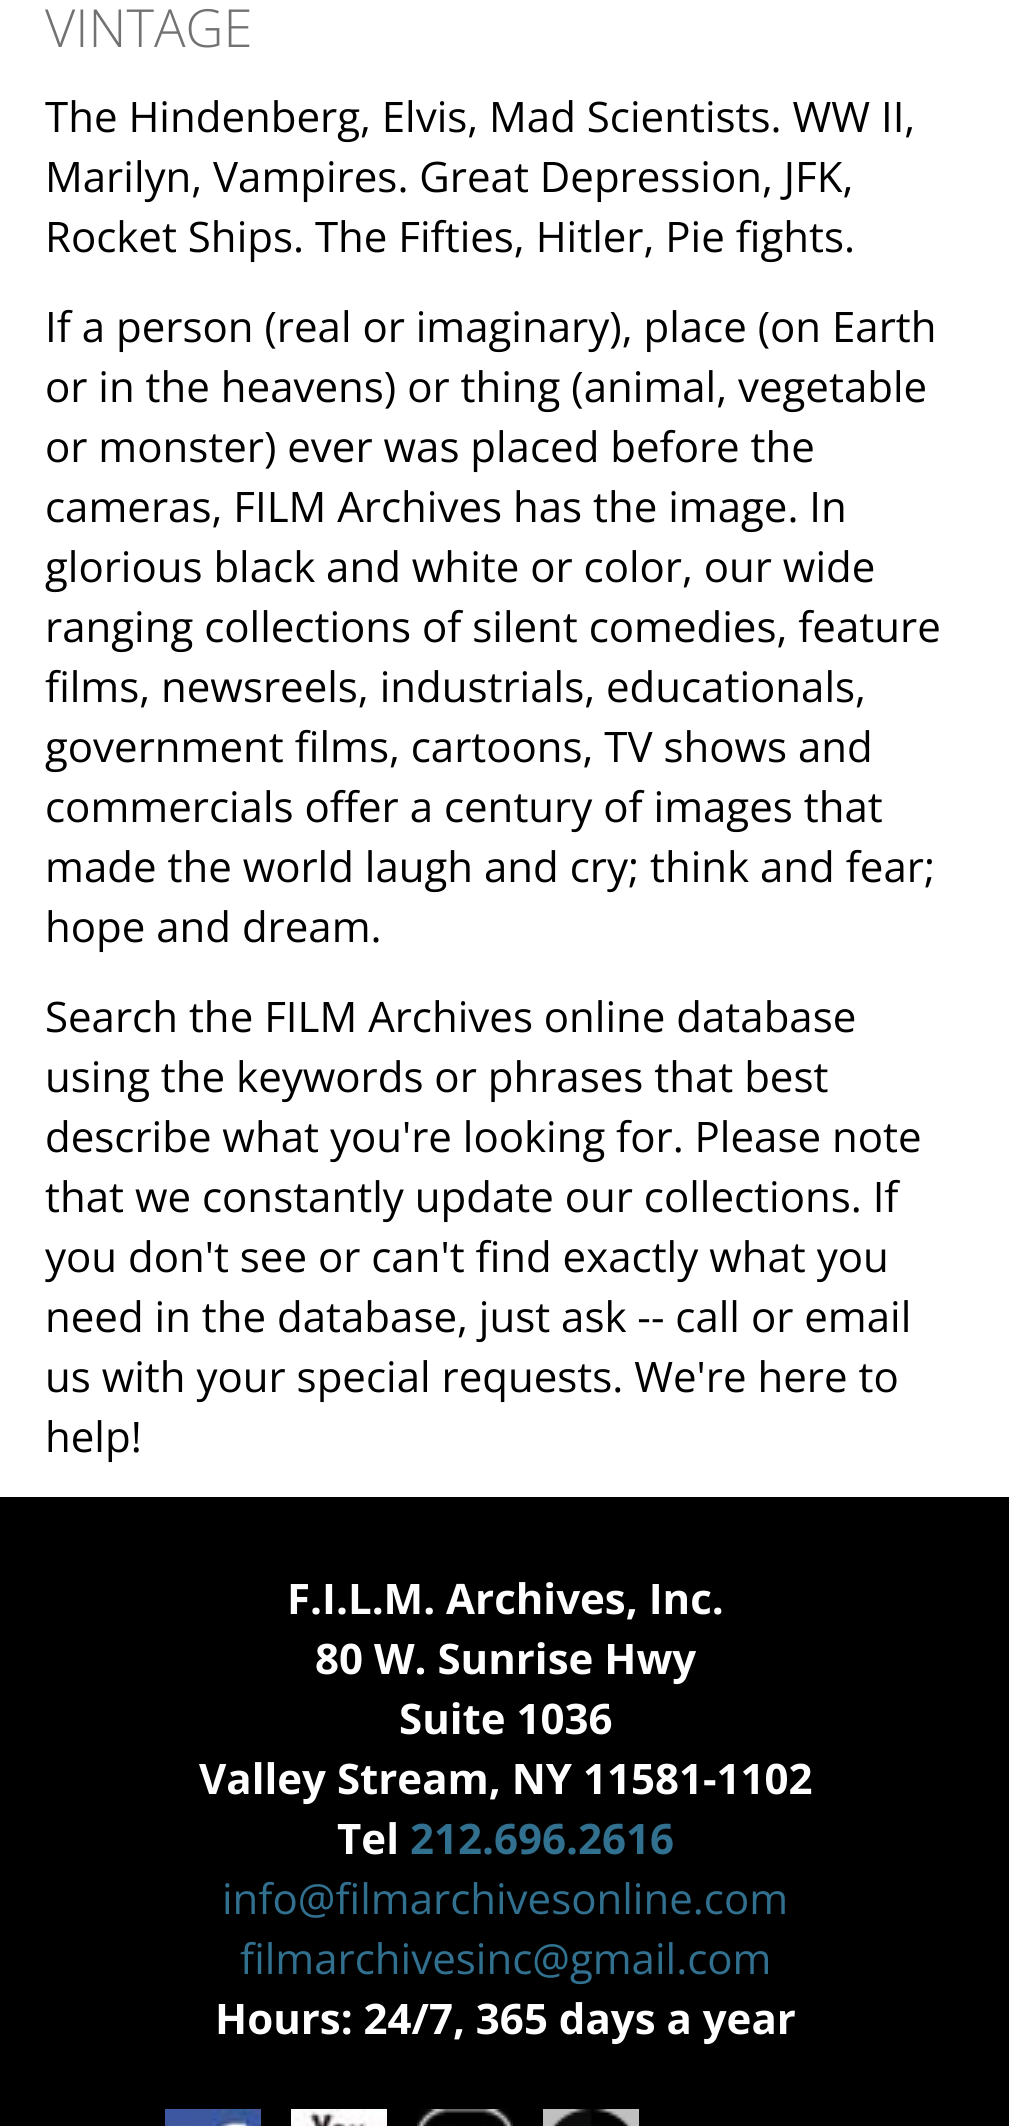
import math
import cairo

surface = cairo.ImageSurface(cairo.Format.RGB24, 1009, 2126)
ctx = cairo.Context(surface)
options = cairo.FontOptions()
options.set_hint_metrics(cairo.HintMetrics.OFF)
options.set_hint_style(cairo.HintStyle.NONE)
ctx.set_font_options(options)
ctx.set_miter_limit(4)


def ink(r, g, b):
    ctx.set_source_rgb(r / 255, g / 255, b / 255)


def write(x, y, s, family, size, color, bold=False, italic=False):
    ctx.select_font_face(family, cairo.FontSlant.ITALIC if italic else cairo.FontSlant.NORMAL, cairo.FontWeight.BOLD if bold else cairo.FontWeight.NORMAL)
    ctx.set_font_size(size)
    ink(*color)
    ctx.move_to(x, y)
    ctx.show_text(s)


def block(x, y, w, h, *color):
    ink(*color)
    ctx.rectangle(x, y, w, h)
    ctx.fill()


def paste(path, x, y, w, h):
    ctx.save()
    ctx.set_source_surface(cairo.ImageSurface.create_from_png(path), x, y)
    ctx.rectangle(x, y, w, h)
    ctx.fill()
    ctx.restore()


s1 = dict(family="Open Sans Light", size=52.5, color=(114, 114, 114))
s2 = dict(family="Open Sans", size=42, color=(0, 0, 0))
s3 = dict(family="Open Sans", size=42, color=(255, 255, 255), bold=True)
s4 = dict(family="Open Sans", size=42, color=(49, 112, 143), bold=True)
s5 = dict(family="Open Sans", size=42, color=(49, 112, 143))

ink(0, 0, 0)
ctx.paint()
block(0, 0, 1009, 1497, 255, 255, 255)
write(45, 47, "VINTAGE", **s1)
write(45, 132, "The Hindenberg, Elvis, Mad Scientists. WW II,", **s2)
write(45, 192, "Marilyn, Vampires. Great Depression, JFK,", **s2)
write(45, 252, "Rocket Ships. The Fifties, Hitler, Pie fights.", **s2)
write(45, 342, "If a person (real or imaginary), place (on Earth", **s2)
write(45, 402, "or in the heavens) or thing (animal, vegetable", **s2)
write(45, 462, "or monster) ever was placed before the", **s2)
write(45, 522, "cameras, FILM Archives has the image. In", **s2)
write(45, 582, "glorious black and white or color, our wide", **s2)
write(45, 642, "ranging collections of silent comedies, feature", **s2)
write(45, 702, "films, newsreels, industrials, educationals,", **s2)
write(45, 762, "government films, cartoons, TV shows and", **s2)
write(45, 822, "commercials offer a century of images that", **s2)
write(45, 882, "made the world laugh and cry; think and fear;", **s2)
write(45, 942, "hope and dream.", **s2)
write(45, 1032, "Search the FILM Archives online database", **s2)
write(45, 1092, "using the keywords or phrases that best", **s2)
write(45, 1152, "describe what you're looking for. Please note", **s2)
write(45, 1212, "that we constantly update our collections. If", **s2)
write(45, 1272, "you don't see or can't find exactly what you", **s2)
write(45, 1332, "need in the database, just ask -- call or email", **s2)
write(45, 1392, "us with your special requests. We're here to", **s2)
write(45, 1452, "help!", **s2)
write(287, 1614, "F.I.L.M. Archives, Inc.", **s3)
write(315, 1674, "80 W. Sunrise Hwy", **s3)
write(399, 1734, "Suite 1036", **s3)
write(199, 1794, "Valley Stream, NY 11581-1102", **s3)
write(337, 1854, "Tel", **s3)
write(410, 1854, "212.696.2616", **s4)
write(222, 1914, "info@filmarchivesonline.com", **s5)
write(240, 1974, "filmarchivesinc@gmail.com", **s5)
write(215, 2034, "Hours: 24/7, 365 days a year", **s3)
paste("pic1.png", 165, 2109, 96, 17)
paste("pic2.png", 291, 2109, 96, 17)
paste("pic3.png", 417, 2109, 96, 17)
paste("pic4.png", 543, 2109, 96, 17)
surface.write_to_png("screenshot.png")
